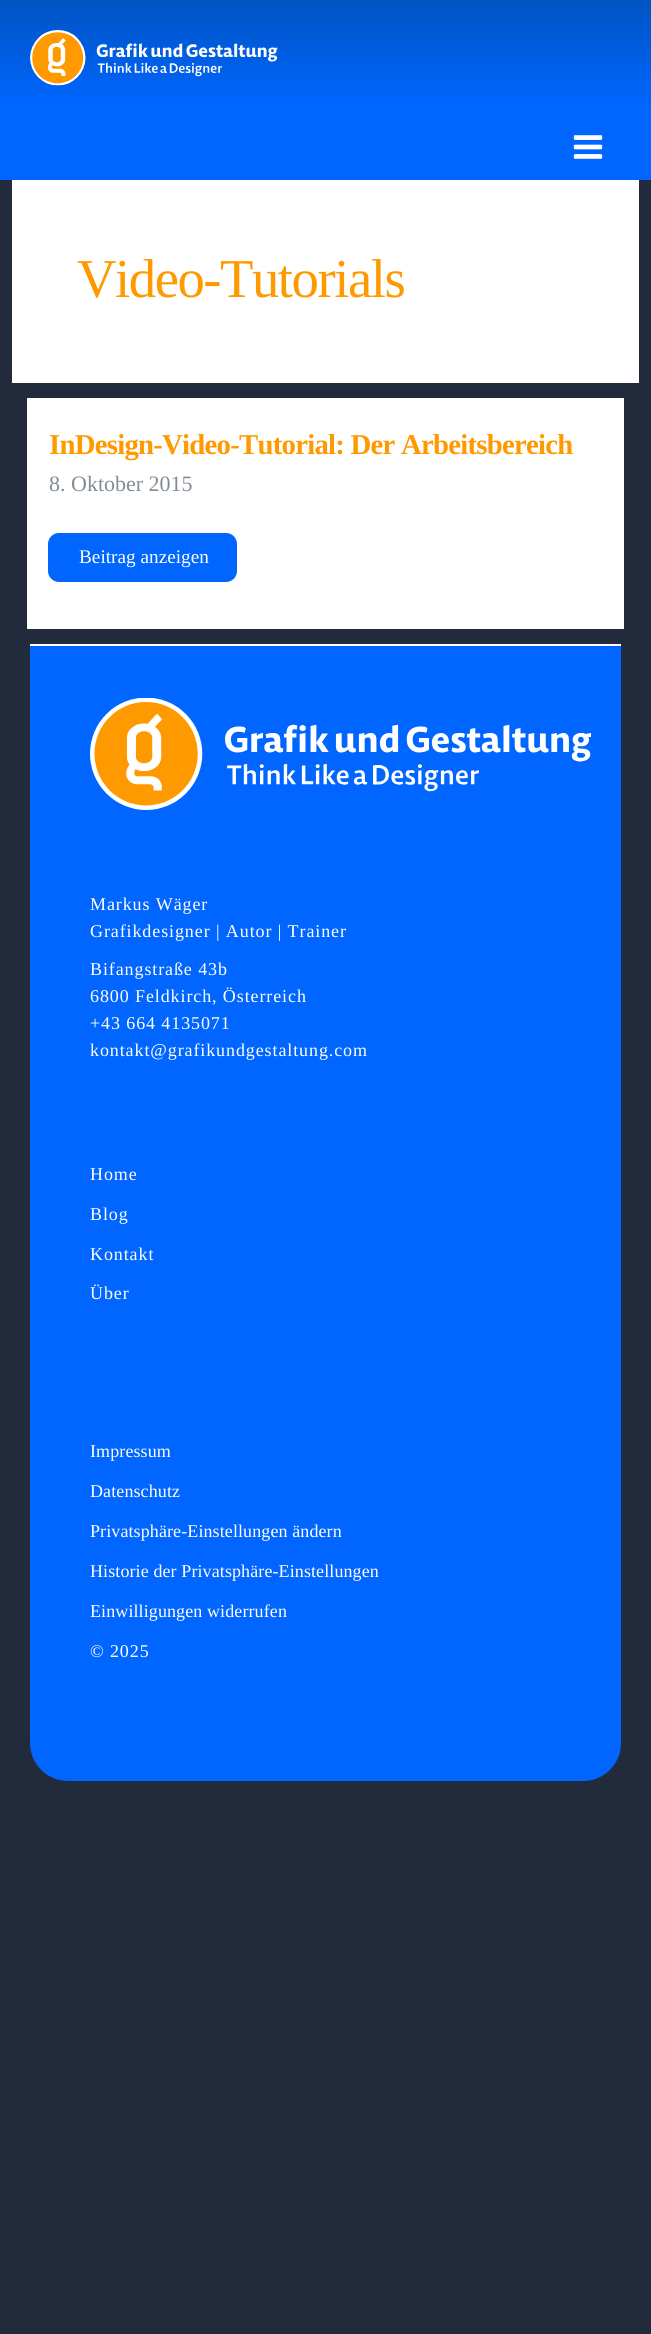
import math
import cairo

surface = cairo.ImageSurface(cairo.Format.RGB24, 651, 2334)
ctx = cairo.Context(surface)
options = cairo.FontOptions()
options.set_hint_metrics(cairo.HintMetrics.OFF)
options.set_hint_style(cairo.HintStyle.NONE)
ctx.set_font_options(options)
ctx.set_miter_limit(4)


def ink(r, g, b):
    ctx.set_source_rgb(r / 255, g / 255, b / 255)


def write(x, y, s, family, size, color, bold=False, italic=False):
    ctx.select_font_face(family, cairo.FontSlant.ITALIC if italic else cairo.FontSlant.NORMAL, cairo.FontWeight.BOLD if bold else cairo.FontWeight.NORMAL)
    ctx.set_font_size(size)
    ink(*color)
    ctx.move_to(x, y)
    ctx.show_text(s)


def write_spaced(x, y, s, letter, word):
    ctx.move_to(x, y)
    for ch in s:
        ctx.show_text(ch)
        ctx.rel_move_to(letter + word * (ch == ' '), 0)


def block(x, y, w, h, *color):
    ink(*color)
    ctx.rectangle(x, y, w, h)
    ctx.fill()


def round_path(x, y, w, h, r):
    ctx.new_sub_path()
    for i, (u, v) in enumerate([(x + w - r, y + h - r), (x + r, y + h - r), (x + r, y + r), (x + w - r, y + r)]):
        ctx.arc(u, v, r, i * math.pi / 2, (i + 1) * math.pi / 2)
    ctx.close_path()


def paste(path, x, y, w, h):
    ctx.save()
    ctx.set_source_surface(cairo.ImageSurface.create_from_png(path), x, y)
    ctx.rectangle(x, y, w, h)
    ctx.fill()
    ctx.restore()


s1 = dict(family="Liberation Serif", size=22, color=(132, 140, 152))
s2 = dict(family="Liberation Serif", size=19.25, color=(255, 255, 255))

ink(34, 43, 59)
ctx.paint()
gradient = cairo.LinearGradient(326, 107, 326, 0)
gradient.add_color_stop_rgba(0, 0, 0.4, 1, 1)
gradient.add_color_stop_rgba(1, 0, 0.329, 0.765, 1)
ctx.set_source(gradient)
ctx.rectangle(0, 0, 651, 107)
ctx.fill()
paste("pic1.png", 30, 30, 248, 56)
block(0, 107, 651, 73, 0, 102, 255)
paste("pic2.png", 573, 135, 30, 24)
block(12, 180, 627, 203, 255, 255, 255)
ctx.select_font_face("Liberation Serif")
ctx.set_font_size(54.75)
ink(255, 153, 0)
write_spaced(77, 297, "Video-Tutorials", -1.5, 0)
block(27, 398, 597, 231, 255, 255, 255)
ctx.select_font_face("Liberation Serif", cairo.FontSlant.NORMAL, cairo.FontWeight.BOLD)
ctx.set_font_size(28.75)
ink(255, 153, 0)
write_spaced(49, 454, "InDesign-Video-Tutorial: Der Arbeitsbereich", -0.75, 0)
write(49, 491, "8. Oktober 2015", **s1)
ink(0, 102, 255)
round_path(48, 533, 189, 49, 11)
ctx.fill()
write(79, 563, "Beitrag anzeigen", **s2)
ink(0, 102, 255)
ctx.new_path()
ctx.move_to(30, 645)
ctx.line_to(621, 645)
ctx.line_to(621, 1743)
ctx.curve_to(621, 1764, 604, 1781, 583, 1781)
ctx.line_to(68, 1781)
ctx.curve_to(47, 1781, 30, 1764, 30, 1743)
ctx.close_path()
ctx.fill()
block(30, 644, 591, 2, 255, 255, 255)
paste("pic3.png", 90, 698, 501, 112)
ctx.set_font_size(18)
write_spaced(90, 910, "Markus Wäger", 0.9, 0)
write_spaced(90, 937, "Grafikdesigner | Autor | Trainer", 0.9, 0)
write_spaced(90, 975, "Bifangstraße 43b", 0.9, 0)
write_spaced(90, 1002, "6800 Feldkirch, Österreich", 0.9, 0)
write_spaced(90, 1029, "+43 664 4135071", 0.9, 0)
write_spaced(90, 1056, "kontakt@grafikundgestaltung.com", 0.9, 0)
write_spaced(90, 1180, "Home", 0.9, 0)
write_spaced(90, 1220, "Blog", 0.9, 0)
write_spaced(90, 1260, "Kontakt", 0.9, 0)
write_spaced(90, 1299, "Über", 0.9, 0)
write_spaced(90, 1457, "Impressum", 0.1, 0)
write_spaced(90, 1497, "Datenschutz", 0.1, 0)
write_spaced(90, 1537, "Privatsphäre-Einstellungen ändern", 0.1, 0)
write_spaced(90, 1577, "Historie der Privatsphäre-Einstellungen", 0.1, 0)
write_spaced(90, 1617, "Einwilligungen widerrufen", 0.1, 0)
write_spaced(90, 1657, "© 2025", 0.9, 0)
surface.write_to_png("screenshot.png")
